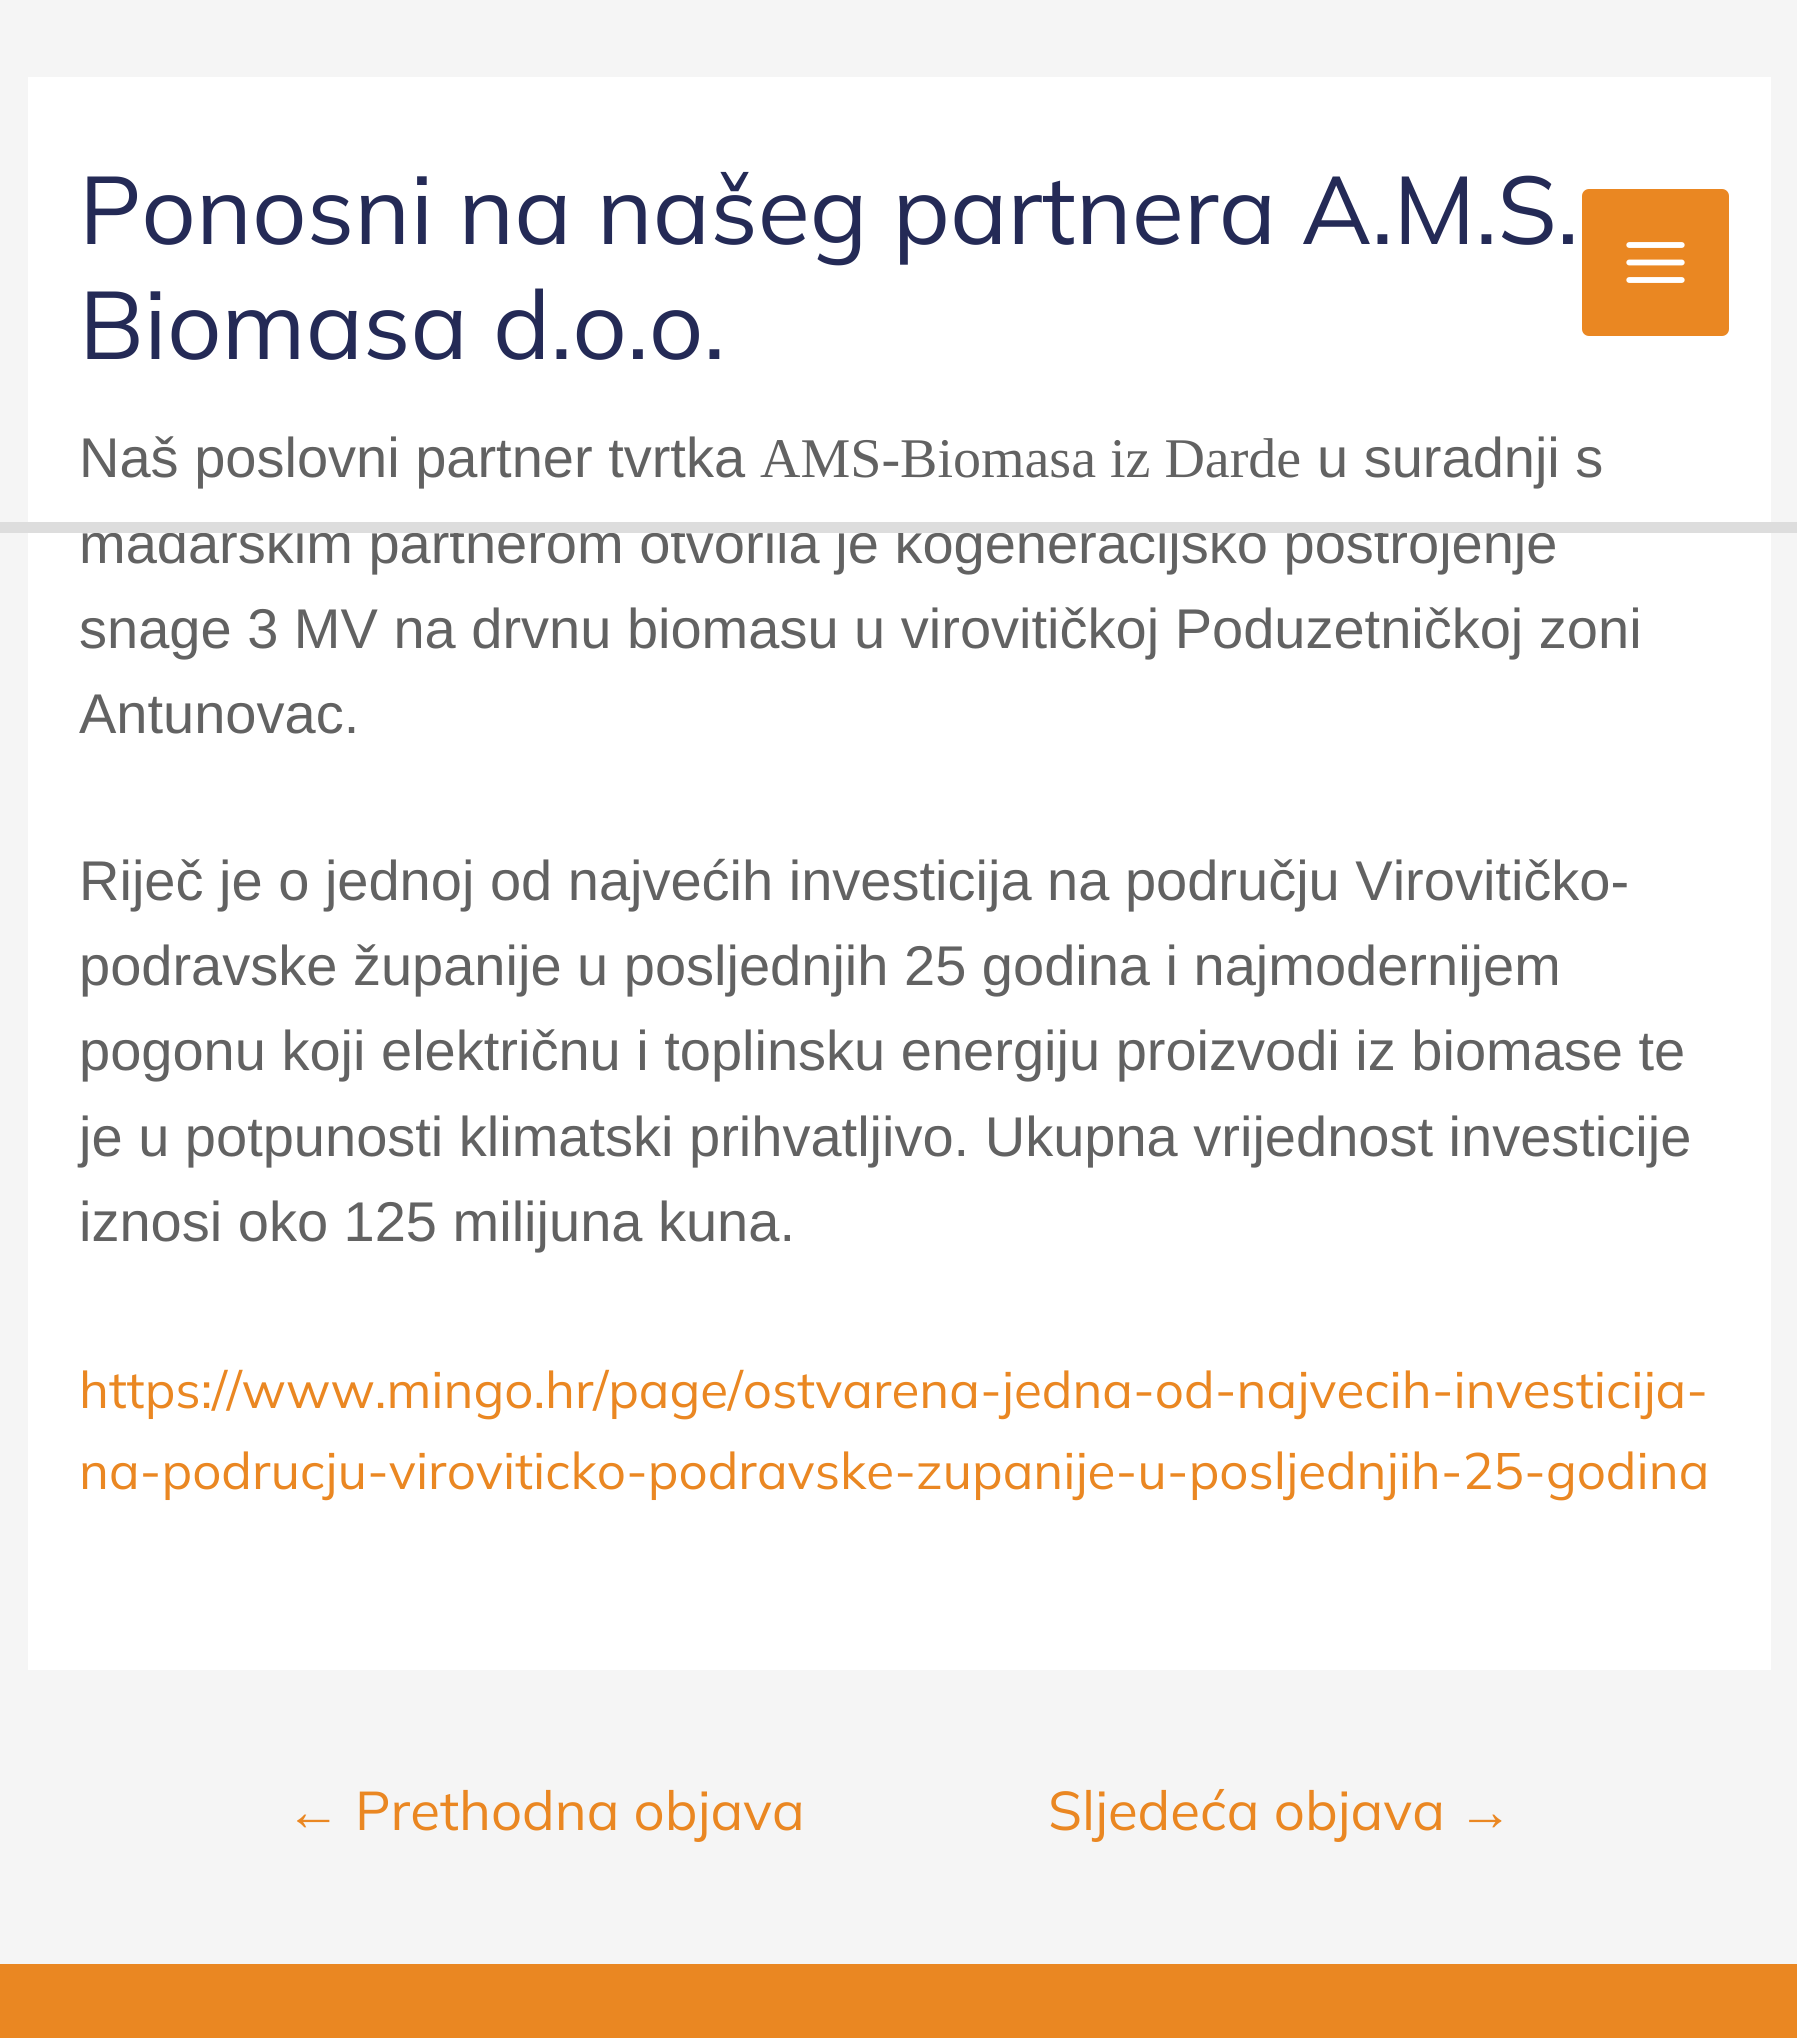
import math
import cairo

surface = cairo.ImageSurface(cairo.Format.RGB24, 1797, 2038)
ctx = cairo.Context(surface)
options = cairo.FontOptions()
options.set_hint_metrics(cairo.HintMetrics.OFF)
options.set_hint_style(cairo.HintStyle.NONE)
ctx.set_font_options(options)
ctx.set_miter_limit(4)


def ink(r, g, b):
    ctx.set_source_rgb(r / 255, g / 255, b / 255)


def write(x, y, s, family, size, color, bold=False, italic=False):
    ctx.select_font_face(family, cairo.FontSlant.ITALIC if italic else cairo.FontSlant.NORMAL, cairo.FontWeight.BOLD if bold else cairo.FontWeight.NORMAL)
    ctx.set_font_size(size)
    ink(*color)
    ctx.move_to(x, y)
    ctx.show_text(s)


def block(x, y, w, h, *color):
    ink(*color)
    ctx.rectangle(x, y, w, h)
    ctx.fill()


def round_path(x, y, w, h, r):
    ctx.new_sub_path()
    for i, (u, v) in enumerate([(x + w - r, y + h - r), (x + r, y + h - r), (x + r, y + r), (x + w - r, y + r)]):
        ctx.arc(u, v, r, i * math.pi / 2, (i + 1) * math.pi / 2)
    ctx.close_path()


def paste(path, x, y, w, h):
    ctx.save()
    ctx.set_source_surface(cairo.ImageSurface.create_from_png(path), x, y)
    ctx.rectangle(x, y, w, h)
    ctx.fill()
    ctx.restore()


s1 = dict(family="Mulish ExtraLight", size=95.75, color=(36, 42, 86))
s2 = dict(family="Liberation Sans", size=56, color=(98, 98, 98))
s3 = dict(family="Liberation Serif", size=56, color=(98, 98, 98))
s4 = dict(family="Mulish ExtraLight", size=51.1, color=(234, 135, 34))
s5 = dict(family="Liberation Sans", size=54.5, color=(234, 135, 34))
s6 = dict(family="Mulish ExtraLight", size=54.5, color=(234, 135, 34))

ink(245, 245, 245)
ctx.paint()
block(28, 77, 1743, 1593, 255, 255, 255)
write(79, 244, "Ponosni na našeg partnera A.M.S.", **s1)
write(79, 359, "Biomasa d.o.o.", **s1)
write(79, 477, "Naš poslovni partner tvrtka", **s2)
write(760, 477, "AMS-Biomasa iz Darde", **s3)
write(1317, 477, "u suradnji s", **s2)
write(79, 563, "mađarskim partnerom otvorila je kogeneracijsko postrojenje", **s2)
write(79, 648, "snage 3 MV na drvnu biomasu u virovitičkoj Poduzetničkoj zoni", **s2)
write(79, 733, "Antunovac.", **s2)
write(79, 900, "Riječ je o jednoj od najvećih investicija na području Virovitičko-", **s2)
write(79, 985, "podravske županije u posljednjih 25 godina i najmodernijem", **s2)
write(79, 1070, "pogonu koji električnu i toplinsku energiju proizvodi iz biomase te", **s2)
write(79, 1156, "je u potpunosti klimatski prihvatljivo. Ukupna vrijednost investicije", **s2)
write(79, 1241, "iznosi oko 125 milijuna kuna.", **s2)
write(79, 1408, "https://www.mingo.hr/page/ostvarena-jedna-od-najvecih-investicija-", **s4)
write(79, 1489, "na-podrucju-viroviticko-podravske-zupanije-u-posljednjih-25-godina", **s4)
write(286, 1830, "←", **s5)
write(355, 1830, "Prethodna objava", **s6)
write(1048, 1830, "Sljedeća objava", **s6)
write(1458, 1830, "→", **s5)
block(0, 522, 1797, 11, 221, 221, 221)
ink(234, 135, 34)
round_path(1582, 189, 147, 147, 7)
ctx.fill()
paste("pic1.png", 1626, 242, 59, 41)
block(0, 1964, 1797, 74, 234, 135, 34)
surface.write_to_png("screenshot.png")
